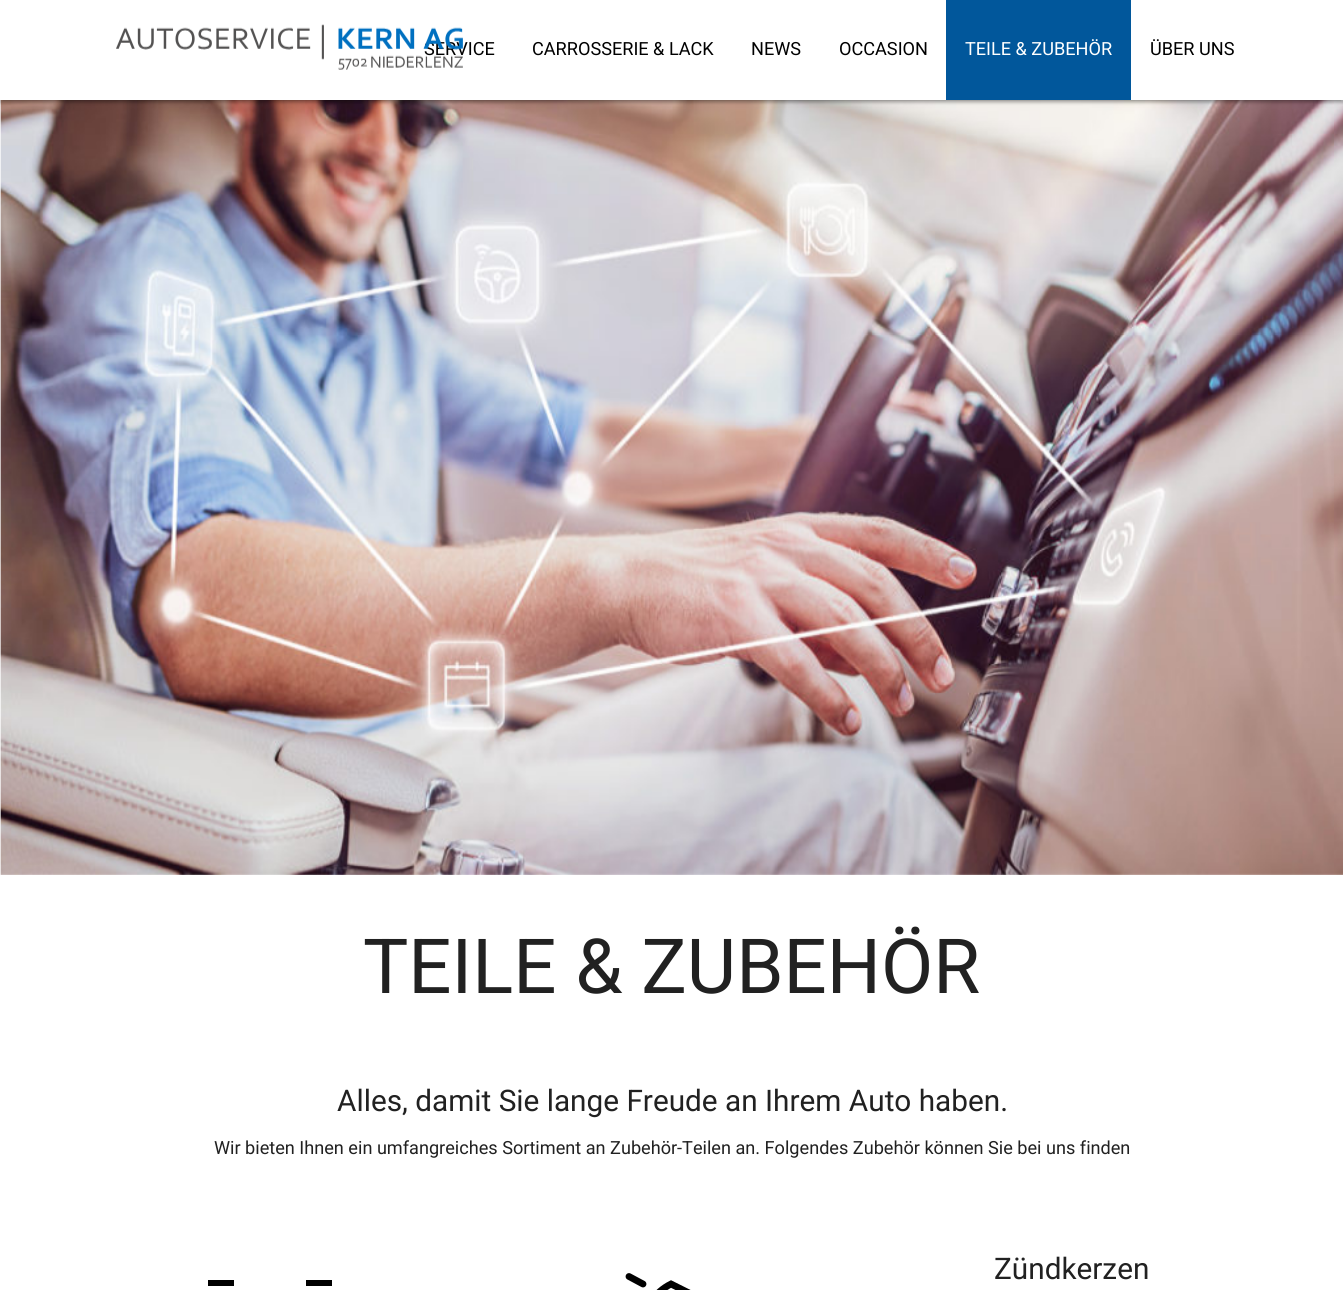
import math
import cairo

surface = cairo.ImageSurface(cairo.Format.RGB24, 1343, 1290)
ctx = cairo.Context(surface)
options = cairo.FontOptions()
options.set_hint_metrics(cairo.HintMetrics.OFF)
options.set_hint_style(cairo.HintStyle.NONE)
ctx.set_font_options(options)
ctx.set_miter_limit(4)


def ink(r, g, b):
    ctx.set_source_rgb(r / 255, g / 255, b / 255)


def write(x, y, s, family, size, color, bold=False, italic=False):
    ctx.select_font_face(family, cairo.FontSlant.ITALIC if italic else cairo.FontSlant.NORMAL, cairo.FontWeight.BOLD if bold else cairo.FontWeight.NORMAL)
    ctx.set_font_size(size)
    ink(*color)
    ctx.move_to(x, y)
    ctx.show_text(s)


def block(x, y, w, h, *color):
    ink(*color)
    ctx.rectangle(x, y, w, h)
    ctx.fill()


def round_path(x, y, w, h, r):
    ctx.new_sub_path()
    for i, (u, v) in enumerate([(x + w - r, y + h - r), (x + r, y + h - r), (x + r, y + r), (x + w - r, y + r)]):
        ctx.arc(u, v, r, i * math.pi / 2, (i + 1) * math.pi / 2)
    ctx.close_path()


def blur_box(x, y, w, h, r, blur, alpha):
    ctx.push_group_with_content(cairo.Content.ALPHA)
    ctx.set_operator(cairo.Operator.SOURCE)
    for i in range(15, -16, -2):
        e = blur * i / 6
        if min(w, h) + 2 * e > 0:
            ctx.set_source_rgba(0, 0, 0, alpha * math.erfc((i - 1) / 8.5) / 2)
            round_path(x - e, y - e, w + 2 * e, h + 2 * e, max(0, min(r + e + blur * .6, min(w, h) / 2 + e)))
            ctx.fill()
    ctx.mask(ctx.pop_group())


def paste(path, x, y, w, h):
    ctx.save()
    ctx.set_source_surface(cairo.ImageSurface.create_from_png(path), x, y)
    ctx.rectangle(x, y, w, h)
    ctx.fill()
    ctx.restore()


s1 = dict(family="Roboto", size=18.12, color=(0, 0, 0))
s2 = dict(family="Roboto", size=18.12, color=(255, 255, 255))
s3 = dict(family="Roboto", size=76, color=(33, 33, 33))
s4 = dict(family="Roboto", size=29.75, color=(33, 33, 33))
s5 = dict(family="Roboto", size=18.12, color=(33, 33, 33))

ink(255, 255, 255)
ctx.paint()
paste("pic2.png", 0, 100, 1343, 775)
ink(0, 0, 0)
blur_box(0, 1, 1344, 100, 0, 3, 0.2)
blur_box(3, 6, 1338, 95, 0, 0.5, 0.12)
blur_box(0, 3, 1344, 100, 0, 1, 0.14)
block(0, 0, 1343, 100, 255, 255, 255)
write(424, 55, "SERVICE", **s1)
paste("pic1.png", 116, 24, 347, 46)
write(532, 55, "CARROSSERIE & LACK", **s1)
write(751, 55, "NEWS", **s1)
write(839, 55, "OCCASION", **s1)
block(946, 0, 185, 100, 1, 87, 155)
write(965, 55, "TEILE & ZUBEHÖR", **s2)
write(1150, 55, "ÜBER UNS", **s1)
write(363, 993, "TEILE & ZUBEHÖR", **s3)
write(337, 1111, "Alles, damit Sie lange Freude an Ihrem Auto haben.", **s4)
write(214, 1154, "Wir bieten Ihnen ein umfangreiches Sortiment an Zubehör-Teilen an. Folgendes Zubehör können Sie bei uns finden", **s5)
block(208, 1280, 26, 6, 0, 0, 0)
block(306, 1280, 26, 6, 0, 0, 0)
ctx.new_path()
ctx.move_to(629, 1276.5)
ctx.line_to(643, 1284)
ctx.set_line_width(6.8)
ctx.set_line_cap(cairo.LineCap.ROUND)
ctx.stroke()
ctx.new_path()
ctx.move_to(671, 1284)
ctx.line_to(704, 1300.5)
ctx.line_to(704, 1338)
ctx.line_to(671, 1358)
ctx.curve_to(638.5, 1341, 637.5, 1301, 671, 1284)
ctx.close_path()
ctx.set_line_cap(cairo.LineCap.BUTT)
ctx.stroke()
write(994, 1279, "Zündkerzen", **s4)
surface.write_to_png("screenshot.png")
